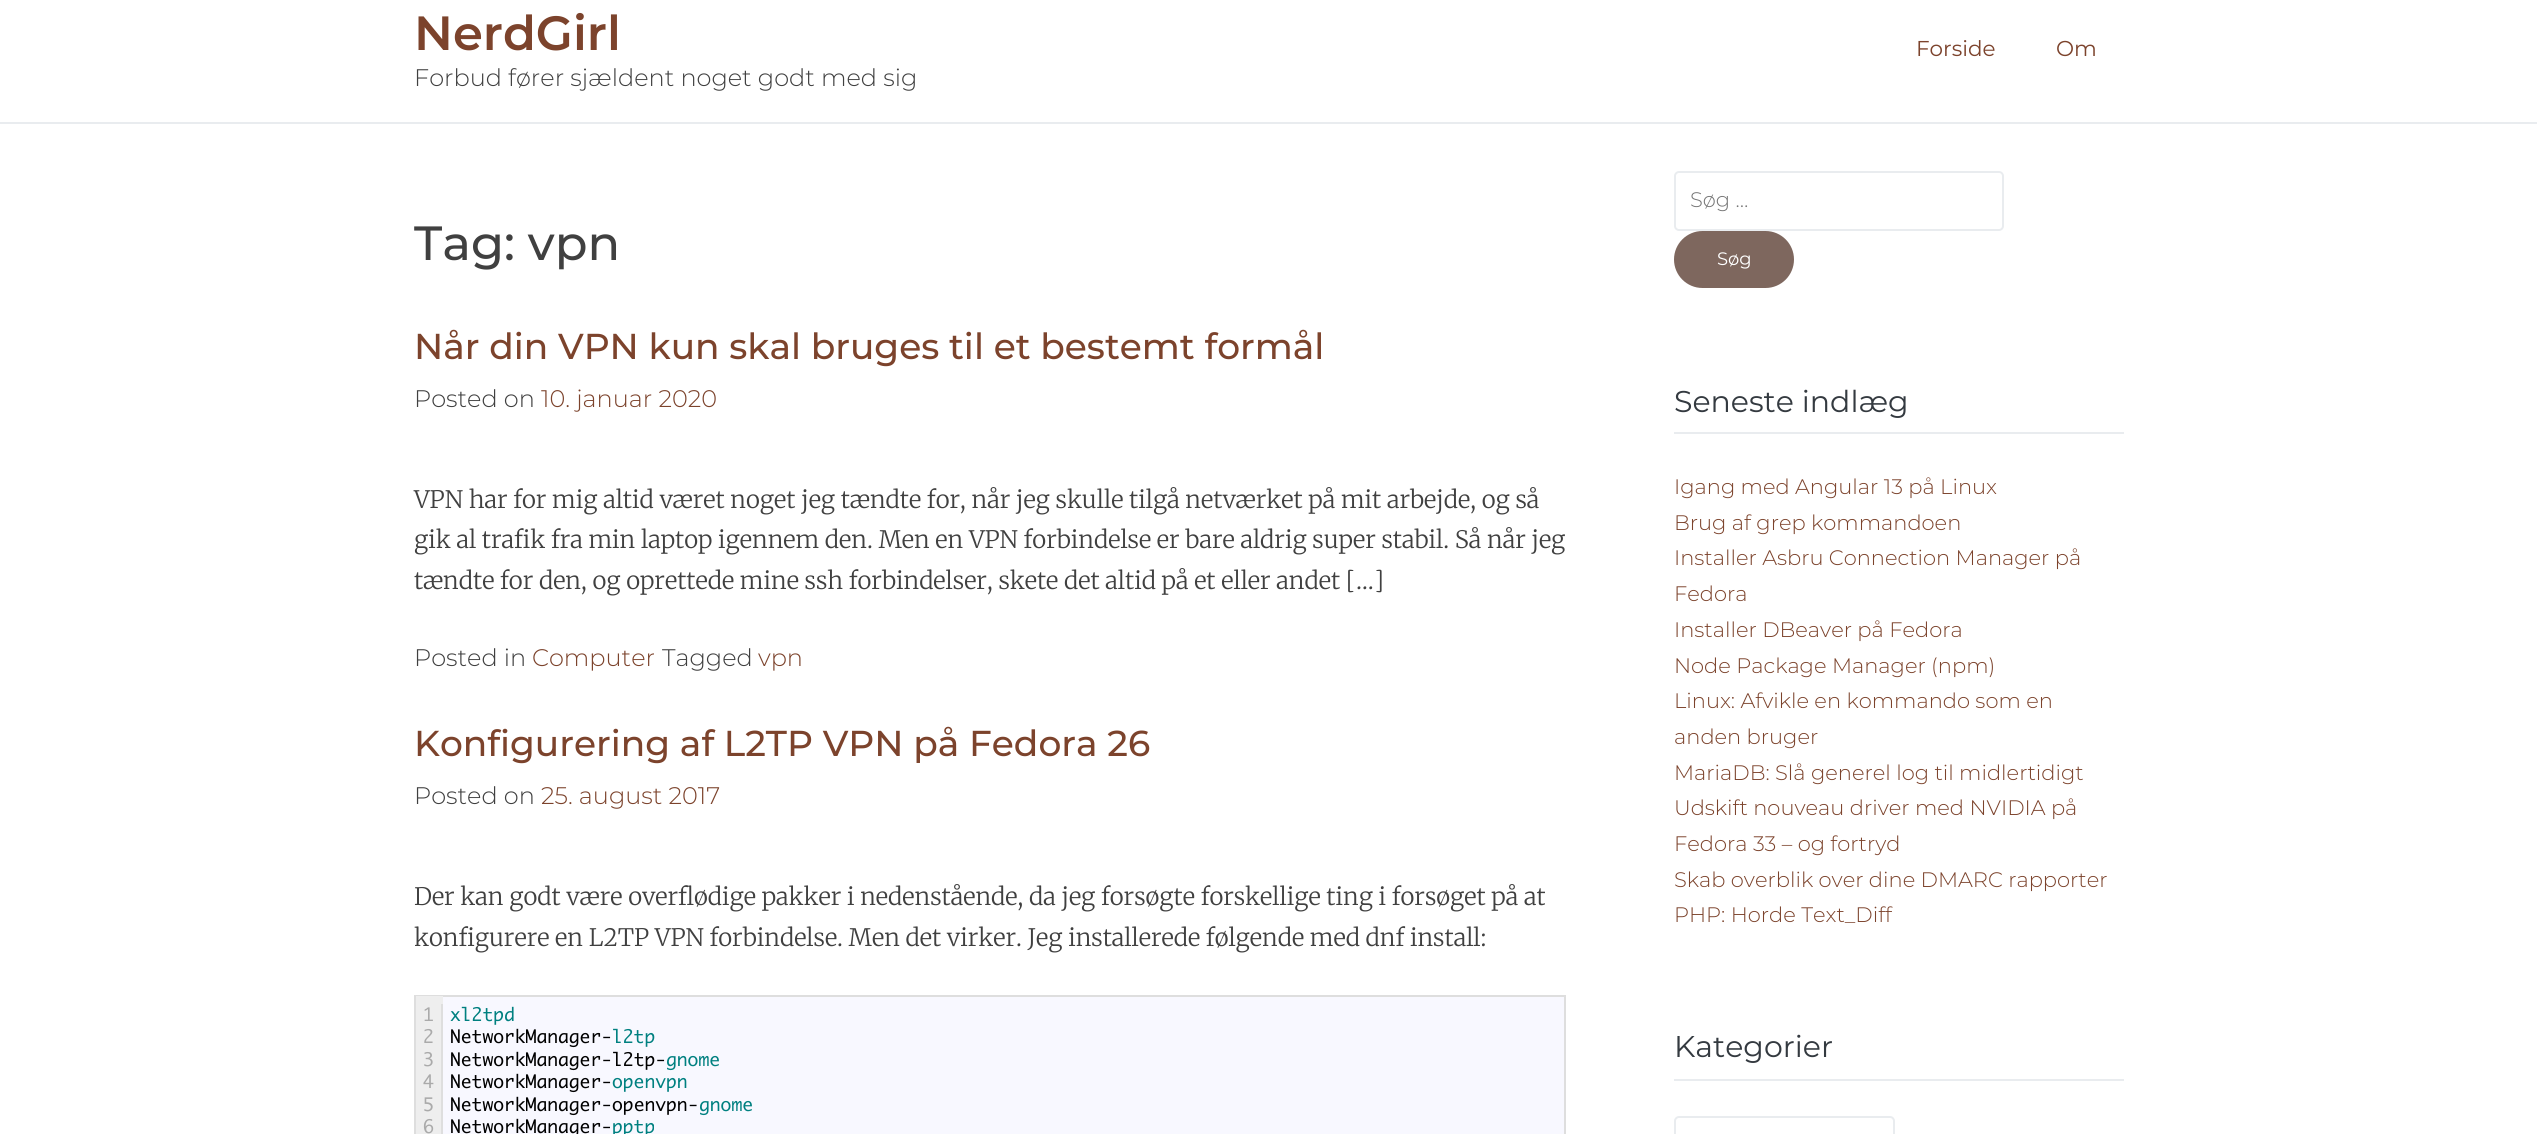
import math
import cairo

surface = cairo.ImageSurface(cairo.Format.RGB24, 2537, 1134)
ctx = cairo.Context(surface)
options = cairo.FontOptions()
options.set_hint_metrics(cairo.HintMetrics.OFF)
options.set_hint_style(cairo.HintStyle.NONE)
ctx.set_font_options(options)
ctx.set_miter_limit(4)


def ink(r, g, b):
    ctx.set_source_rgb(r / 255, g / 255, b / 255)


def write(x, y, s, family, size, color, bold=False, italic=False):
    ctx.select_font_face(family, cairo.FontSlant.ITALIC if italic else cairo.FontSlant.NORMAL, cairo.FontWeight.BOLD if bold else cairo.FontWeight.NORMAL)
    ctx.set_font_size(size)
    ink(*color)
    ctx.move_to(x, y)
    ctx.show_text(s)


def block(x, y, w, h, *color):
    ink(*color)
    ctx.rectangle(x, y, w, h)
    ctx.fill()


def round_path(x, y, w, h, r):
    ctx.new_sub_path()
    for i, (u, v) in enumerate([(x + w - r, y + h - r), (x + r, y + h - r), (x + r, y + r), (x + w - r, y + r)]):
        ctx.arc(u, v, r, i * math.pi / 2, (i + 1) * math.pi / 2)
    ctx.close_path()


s1 = dict(family="Montserrat SemiBold", size=48, color=(124, 67, 44))
s2 = dict(family="Montserrat Light", size=24, color=(64, 64, 64))
s3 = dict(family="Montserrat", size=21.5, color=(124, 67, 44))
s4 = dict(family="Montserrat Medium", size=48, color=(64, 64, 64))
s5 = dict(family="Montserrat Medium", size=36, color=(124, 67, 44))
s6 = dict(family="Montserrat Light", size=24, color=(124, 67, 44))
s7 = dict(family="Merriweather Light", size=24, color=(64, 64, 64))
s8 = dict(family="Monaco", size=18, color=(170, 170, 170))
s9 = dict(family="Monaco", size=18, color=(0, 128, 128))
s10 = dict(family="Monaco", size=18, color=(0, 0, 0))
s11 = dict(family="Montserrat Light", size=21, color=(117, 117, 117))
s12 = dict(family="Montserrat", size=18, color=(255, 255, 255))
s13 = dict(family="Montserrat", size=30, color=(52, 58, 64))
s14 = dict(family="Montserrat Light", size=21, color=(124, 67, 44))

ink(255, 255, 255)
ctx.paint()
block(0, 122, 2537, 2, 233, 236, 239)
write(414, 50, "NerdGirl", **s1)
write(414, 86, "Forbud fører sjældent noget godt med sig", **s2)
write(1916, 56, "Forside", **s3)
write(2056, 56, "Om", **s3)
write(414, 260, "Tag: vpn", **s4)
write(414, 359, "Når din VPN kun skal bruges til et bestemt formål", **s5)
write(414, 407, "Posted on", **s2)
write(541, 407, "10. januar 2020", **s6)
write(414, 508, "VPN har for mig altid været noget jeg tændte for, når jeg skulle tilgå netværket på mit arbejde, og så", **s7)
write(414, 548, "gik al trafik fra min laptop igennem den. Men en VPN forbindelse er bare aldrig super stabil. Så når jeg", **s7)
write(414, 589, "tændte for den, og oprettede mine ssh forbindelser, skete det altid på et eller andet […]", **s7)
write(414, 666, "Posted in", **s2)
write(532, 666, "Computer", **s6)
write(662, 666, "Tagged", **s2)
write(758, 666, "vpn", **s6)
write(414, 756, "Konfigurering af L2TP VPN på Fedora 26", **s5)
write(414, 804, "Posted on", **s2)
write(541, 804, "25. august 2017", **s6)
write(414, 905, "Der kan godt være overflødige pakker i nedenstående, da jeg forsøgte forskellige ting i forsøget på at", **s7)
write(414, 946, "konfigurere en L2TP VPN forbindelse. Men det virker. Jeg installerede følgende med dnf install:", **s7)
block(443, 997, 1121, 137, 248, 248, 255)
ctx.rectangle(415, 996, 1150, 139)
ink(222, 222, 222)
ctx.stroke()
block(416, 996, 27, 138, 238, 238, 238)
block(441, 1004, 2, 130, 222, 222, 222)
write(423, 1021, "1", **s8)
write(423, 1043, "2", **s8)
write(423, 1066, "3", **s8)
write(423, 1088, "4", **s8)
write(423, 1111, "5", **s8)
write(423, 1133, "6", **s8)
write(450, 1021, "xl2tpd", **s9)
write(450, 1043, "NetworkManager-", **s10)
write(612, 1043, "l2tp", **s9)
write(450, 1066, "NetworkManager-l2tp-", **s10)
write(666, 1066, "gnome", **s9)
write(450, 1088, "NetworkManager-", **s10)
write(612, 1088, "openvpn", **s9)
write(450, 1111, "NetworkManager-openvpn-", **s10)
write(699, 1111, "gnome", **s9)
write(450, 1133, "NetworkManager-", **s10)
write(612, 1133, "pptp", **s9)
round_path(1675, 172, 328, 58, 4)
ink(233, 236, 239)
ctx.stroke()
write(1690, 207, "Søg …", **s11)
ink(126, 103, 94)
round_path(1674, 231, 120, 57, 28.5)
ctx.fill()
write(1717, 265, "Søg", **s12)
block(1674, 432, 450, 2, 233, 236, 239)
write(1674, 412, "Seneste indlæg", **s13)
write(1674, 494, "Igang med Angular 13 på Linux", **s14)
write(1674, 530, "Brug af grep kommandoen", **s14)
write(1674, 565, "Installer Asbru Connection Manager på", **s14)
write(1674, 601, "Fedora", **s14)
write(1674, 637, "Installer DBeaver på Fedora", **s14)
write(1674, 673, "Node Package Manager (npm)", **s14)
write(1674, 708, "Linux: Afvikle en kommando som en", **s14)
write(1674, 744, "anden bruger", **s14)
write(1674, 780, "MariaDB: Slå generel log til midlertidigt", **s14)
write(1674, 815, "Udskift nouveau driver med NVIDIA på", **s14)
write(1674, 851, "Fedora 33 – og fortryd", **s14)
write(1674, 887, "Skab overblik over dine DMARC rapporter", **s14)
write(1674, 922, "PHP: Horde Text_Diff", **s14)
block(1674, 1079, 450, 2, 233, 236, 239)
write(1674, 1057, "Kategorier", **s13)
round_path(1675, 1117, 219, 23, 4)
ink(233, 236, 239)
ctx.stroke()
surface.write_to_png("screenshot.png")
